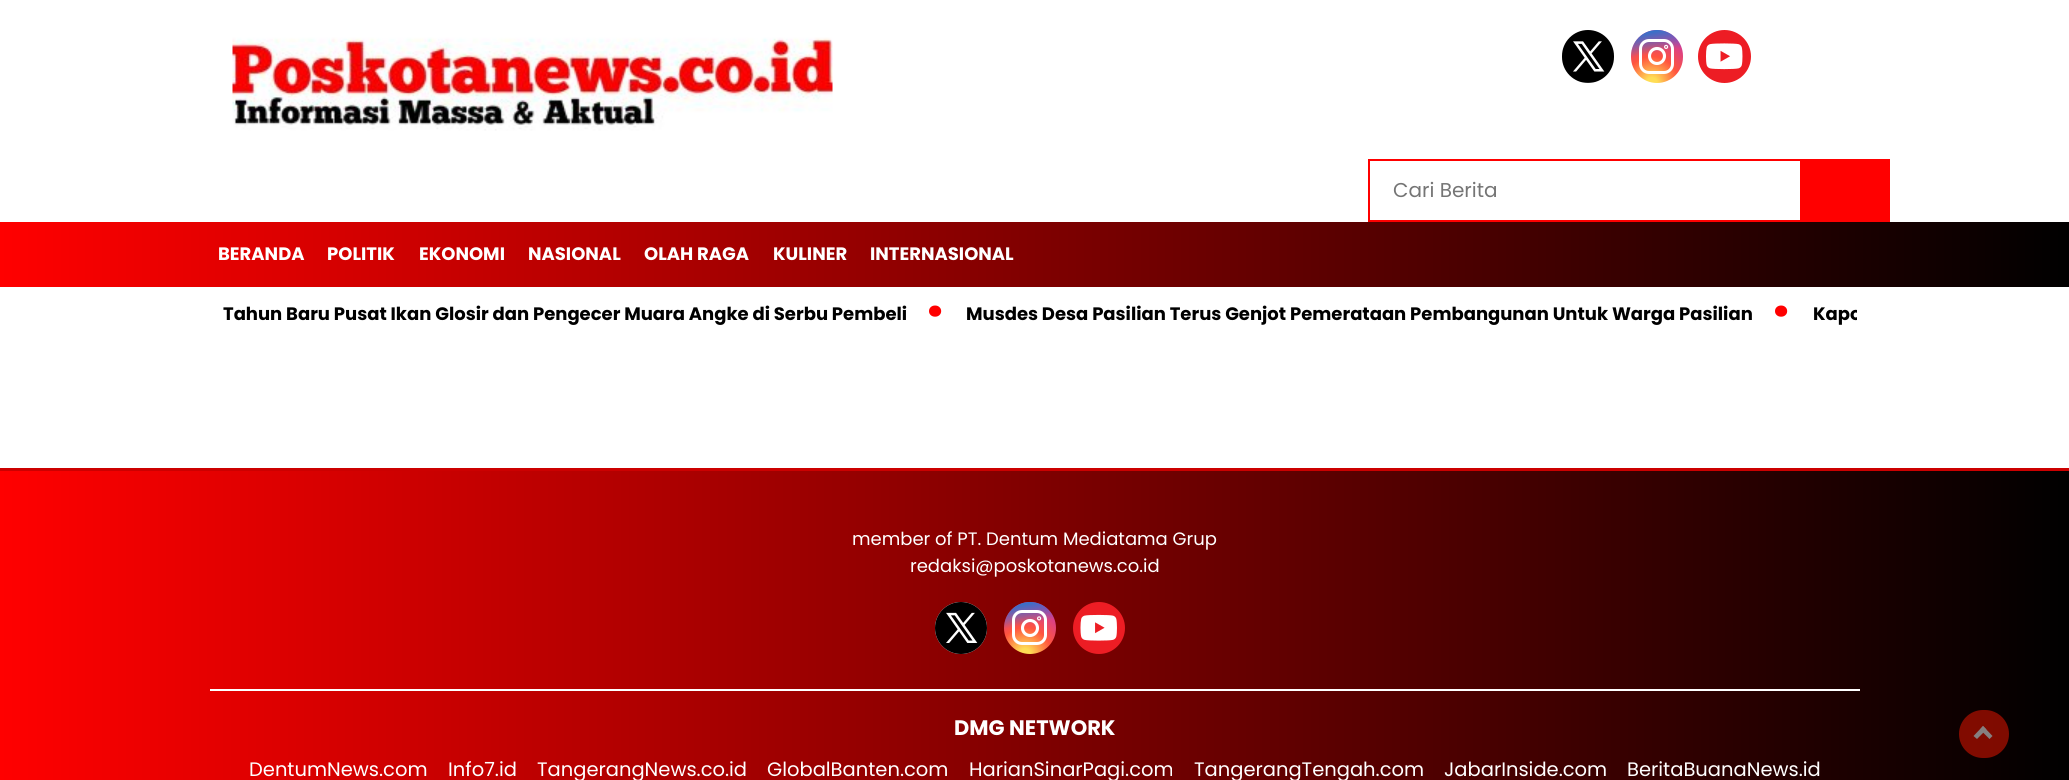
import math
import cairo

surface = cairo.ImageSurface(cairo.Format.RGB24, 2069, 780)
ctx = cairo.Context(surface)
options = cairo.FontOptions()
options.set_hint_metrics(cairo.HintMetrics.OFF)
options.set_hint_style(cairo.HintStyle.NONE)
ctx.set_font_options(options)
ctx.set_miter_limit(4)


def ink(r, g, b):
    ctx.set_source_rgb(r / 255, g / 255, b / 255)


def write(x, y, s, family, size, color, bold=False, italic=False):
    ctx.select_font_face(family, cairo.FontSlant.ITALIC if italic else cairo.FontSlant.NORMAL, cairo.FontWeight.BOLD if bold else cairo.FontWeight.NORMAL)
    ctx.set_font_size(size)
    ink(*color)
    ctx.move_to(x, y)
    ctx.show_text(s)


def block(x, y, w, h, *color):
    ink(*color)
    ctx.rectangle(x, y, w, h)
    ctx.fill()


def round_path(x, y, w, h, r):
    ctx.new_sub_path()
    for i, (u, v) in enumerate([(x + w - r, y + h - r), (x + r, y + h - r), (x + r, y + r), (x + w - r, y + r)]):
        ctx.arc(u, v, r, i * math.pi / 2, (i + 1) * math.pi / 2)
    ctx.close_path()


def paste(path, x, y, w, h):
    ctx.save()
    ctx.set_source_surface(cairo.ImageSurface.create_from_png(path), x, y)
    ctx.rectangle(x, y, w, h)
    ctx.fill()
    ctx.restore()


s1 = dict(family="Poppins", size=20, color=(117, 117, 117))
s2 = dict(family="Poppins", size=18, color=(255, 255, 255), bold=True)
s3 = dict(family="Poppins", size=18, color=(0, 0, 0), bold=True)
s4 = dict(family="Poppins", size=60, color=(255, 0, 0), bold=True)
s5 = dict(family="Poppins", size=18, color=(255, 255, 255))
s6 = dict(family="Poppins", size=21, color=(255, 255, 255), bold=True)
s7 = dict(family="Poppins", size=19.5, color=(255, 255, 255))

ink(255, 255, 255)
ctx.paint()
paste("pic1.png", 232, 37, 601, 94)
paste("pic2.png", 1562, 30, 52, 53)
gradient = cairo.RadialGradient(1652, 83, 0, 1652, 83, 53)
gradient.add_color_stop_rgba(0.1, 1, 0.867, 0.333, 1)
gradient.add_color_stop_rgba(0.5, 1, 0.329, 0.243, 1)
gradient.add_color_stop_rgba(1, 0.784, 0.216, 0.671, 1)
ctx.set_source(gradient)
round_path(1631, 30, 52, 53, 26)
ctx.fill()
gradient = cairo.LinearGradient(1631, 30, 1641, 83)
gradient.add_color_stop_rgba(0.1, 0.216, 0.443, 0.784, 1)
gradient.add_color_stop_rgba(0.5, 0.216, 0.443, 0.784, 0)
ctx.set_source(gradient)
round_path(1631, 30, 52, 53, 26)
ctx.fill()
round_path(1640.5, 40.5, 32, 32, 8.5)
ink(255, 255, 255)
ctx.set_line_width(3)
ctx.stroke()
ctx.arc(1657, 56, 7.5, 0, 2 * math.pi)
ctx.set_line_width(3.1)
ctx.stroke()
ctx.arc(1666.1, 46.9, 0.6, 0, 2 * math.pi)
ctx.stroke()
paste("pic3.png", 1698, 30, 53, 53)
ctx.rectangle(1369, 160, 432, 61)
ink(255, 0, 0)
ctx.set_line_width(2)
ctx.stroke()
write(1393, 197, "Cari Berita", **s1)
block(1802, 159, 88, 63, 255, 0, 0)
gradient = cairo.LinearGradient(0, 254, 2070, 254)
gradient.add_color_stop_rgba(0, 1, 0, 0, 1)
gradient.add_color_stop_rgba(1, 0, 0, 0, 1)
ctx.set_source(gradient)
ctx.rectangle(0, 222, 2069, 65)
ctx.fill()
write(218, 260, "BERANDA", **s2)
write(327, 260, "POLITIK", **s2)
write(419, 260, "EKONOMI", **s2)
write(528, 260, "NASIONAL", **s2)
write(644, 260, "OLAH RAGA", **s2)
write(773, 260, "KULINER", **s2)
write(870, 260, "INTERNASIONAL", **s2)
write(223, 320, "Tahun Baru Pusat Ikan Glosir dan Pengecer Muara Angke di Serbu Pembeli", **s3)
write(926, 330, "·", **s4)
write(966, 320, "Musdes Desa Pasilian Terus Genjot Pemerataan Pembangunan Untuk Warga Pasilian", **s3)
write(1772, 330, "·", **s4)
ctx.save()
ctx.rectangle(215, 287, 1642, 52)
ctx.clip()
write(1813, 320, "Kapo", **s3)
ctx.restore()
gradient = cairo.LinearGradient(0, 746, 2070, 746)
gradient.add_color_stop_rgba(0, 1, 0, 0, 1)
gradient.add_color_stop_rgba(1, 0, 0, 0, 1)
ctx.set_source(gradient)
ctx.rectangle(0, 471, 2069, 309)
ctx.fill()
block(0, 468, 2069, 3, 204, 0, 0)
write(852, 545, "member of PT. Dentum Mediatama Grup", **s5)
write(910, 572, "redaksi@poskotanews.co.id", **s5)
paste("pic4.png", 935, 602, 52, 52)
gradient = cairo.RadialGradient(1025, 654, 0, 1025, 654, 53)
gradient.add_color_stop_rgba(0.1, 1, 0.867, 0.333, 1)
gradient.add_color_stop_rgba(0.5, 1, 0.329, 0.243, 1)
gradient.add_color_stop_rgba(1, 0.784, 0.216, 0.671, 1)
ctx.set_source(gradient)
ctx.arc(1030, 628, 26, 0, 2 * math.pi)
ctx.fill()
gradient = cairo.LinearGradient(1004, 602, 1014, 654)
gradient.add_color_stop_rgba(0.1, 0.216, 0.443, 0.784, 1)
gradient.add_color_stop_rgba(0.5, 0.216, 0.443, 0.784, 0)
ctx.set_source(gradient)
ctx.arc(1030, 628, 26, 0, 2 * math.pi)
ctx.fill()
round_path(1013.5, 611.5, 32, 32, 8.5)
ink(255, 255, 255)
ctx.set_line_width(3)
ctx.stroke()
ctx.arc(1030, 628, 7.5, 0, 2 * math.pi)
ctx.set_line_width(3.1)
ctx.stroke()
ctx.arc(1039.1, 618.4, 0.6, 0, 2 * math.pi)
ctx.stroke()
paste("pic5.png", 1073, 602, 52, 52)
block(210, 689, 1650, 2, 255, 255, 255)
write(954, 735, "DMG NETWORK", **s6)
write(249, 776, "DentumNews.com", **s7)
write(448, 776, "Info7.id", **s7)
write(537, 776, "TangerangNews.co.id", **s7)
write(767, 776, "GlobalBanten.com", **s7)
write(969, 776, "HarianSinarPagi.com", **s7)
write(1194, 776, "TangerangTengah.com", **s7)
write(1444, 776, "JabarInside.com", **s7)
write(1627, 776, "BeritaBuanaNews.id", **s7)
ctx.set_source_rgba(0.961, 0.09, 0, 0.5)
round_path(1959, 710, 50, 48, 24)
ctx.fill()
ink(133, 128, 128)
ctx.new_path()
ctx.move_to(1977, 739)
ctx.line_to(1973.5, 736)
ctx.line_to(1983, 726)
ctx.line_to(1986.5, 729.5)
ctx.close_path()
ctx.fill()
ctx.new_path()
ctx.move_to(1989.5, 739)
ctx.line_to(1980, 729.5)
ctx.line_to(1983, 726)
ctx.line_to(1992.5, 736)
ctx.close_path()
ctx.fill()
surface.write_to_png("screenshot.png")
